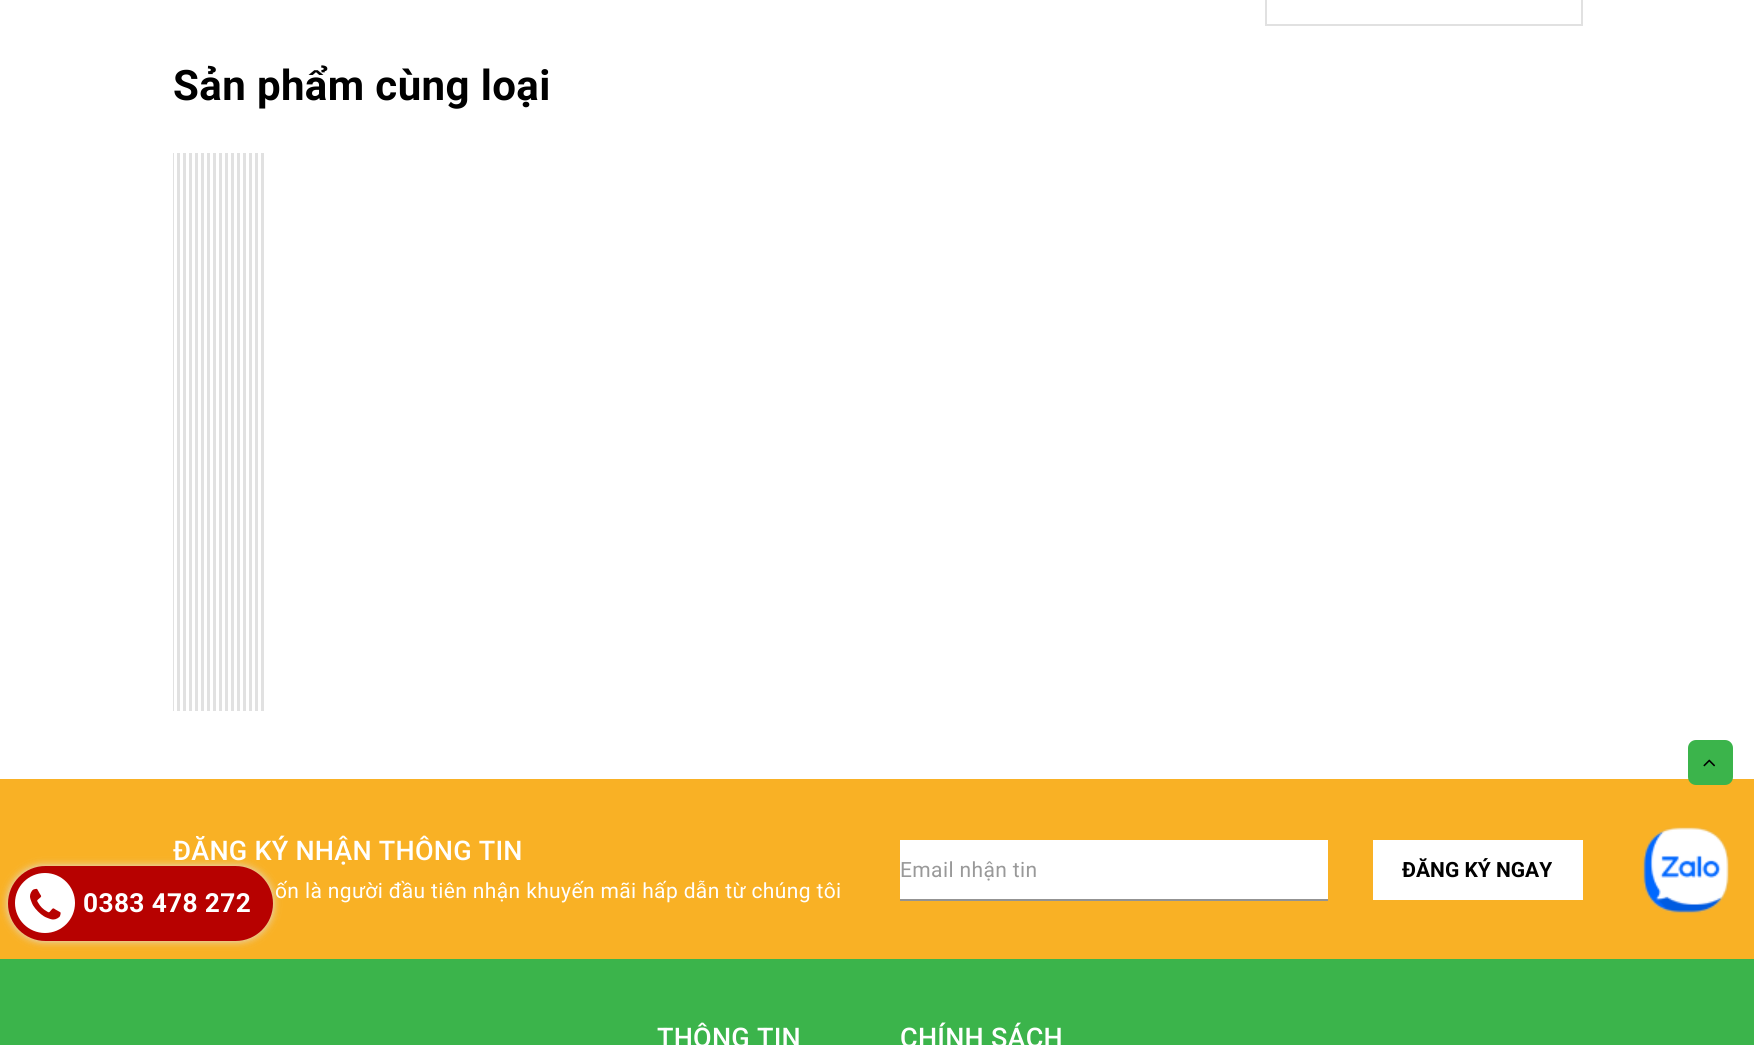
import math
import cairo

surface = cairo.ImageSurface(cairo.Format.RGB24, 1754, 1045)
ctx = cairo.Context(surface)
options = cairo.FontOptions()
options.set_hint_metrics(cairo.HintMetrics.OFF)
options.set_hint_style(cairo.HintStyle.NONE)
ctx.set_font_options(options)
ctx.set_miter_limit(4)


def ink(r, g, b):
    ctx.set_source_rgb(r / 255, g / 255, b / 255)


def write(x, y, s, family, size, color, bold=False, italic=False):
    ctx.select_font_face(family, cairo.FontSlant.ITALIC if italic else cairo.FontSlant.NORMAL, cairo.FontWeight.BOLD if bold else cairo.FontWeight.NORMAL)
    ctx.set_font_size(size)
    ink(*color)
    ctx.move_to(x, y)
    ctx.show_text(s)


def write_spaced(x, y, s, letter, word):
    ctx.move_to(x, y)
    for ch in s:
        ctx.show_text(ch)
        ctx.rel_move_to(letter + word * (ch == ' '), 0)


def block(x, y, w, h, *color):
    ink(*color)
    ctx.rectangle(x, y, w, h)
    ctx.fill()


def round_path(x, y, w, h, r):
    ctx.new_sub_path()
    for i, (u, v) in enumerate([(x + w - r, y + h - r), (x + r, y + h - r), (x + r, y + r), (x + w - r, y + r)]):
        ctx.arc(u, v, r, i * math.pi / 2, (i + 1) * math.pi / 2)
    ctx.close_path()


def blur_box(x, y, w, h, r, blur, alpha):
    ctx.push_group_with_content(cairo.Content.ALPHA)
    ctx.set_operator(cairo.Operator.SOURCE)
    for i in range(15, -16, -2):
        e = blur * i / 6
        if min(w, h) + 2 * e > 0:
            ctx.set_source_rgba(0, 0, 0, alpha * math.erfc((i - 1) / 8.5) / 2)
            round_path(x - e, y - e, w + 2 * e, h + 2 * e, max(0, min(r + e + blur * .6, min(w, h) / 2 + e)))
            ctx.fill()
    ctx.mask(ctx.pop_group())


def paste(path, x, y, w, h):
    ctx.save()
    ctx.set_source_surface(cairo.ImageSurface.create_from_png(path), x, y)
    ctx.rectangle(x, y, w, h)
    ctx.fill()
    ctx.restore()


s1 = dict(family="Roboto", size=21, color=(0, 0, 0), bold=True)

ink(255, 255, 255)
ctx.paint()
ctx.rectangle(1266, -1, 316, 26)
ink(225, 225, 225)
ctx.stroke()
ctx.select_font_face("Roboto", cairo.FontSlant.NORMAL, cairo.FontWeight.BOLD)
ctx.set_font_size(42)
ink(0, 0, 0)
write_spaced(173, 100, "Sản phẩm cùng loại", 0.4, 0)
block(173, 153, 1, 558, 225, 225, 225)
block(177, 153, 3, 558, 225, 225, 225)
block(183, 153, 3, 558, 225, 225, 225)
block(189, 153, 3, 558, 225, 225, 225)
block(195, 153, 3, 558, 225, 225, 225)
block(201, 153, 3, 558, 225, 225, 225)
block(207, 153, 3, 558, 225, 225, 225)
block(213, 153, 3, 558, 225, 225, 225)
block(219, 153, 3, 558, 225, 225, 225)
block(225, 153, 3, 558, 225, 225, 225)
block(231, 153, 3, 558, 225, 225, 225)
block(237, 153, 3, 558, 225, 225, 225)
block(243, 153, 3, 558, 225, 225, 225)
block(249, 153, 3, 558, 225, 225, 225)
block(255, 153, 3, 558, 225, 225, 225)
block(261, 153, 3, 558, 225, 225, 225)
block(0, 779, 1754, 180, 249, 177, 37)
ink(221, 221, 221)
blur_box(8, 866, 265, 75, 37.5, 4, 1)
ink(183, 1, 0)
round_path(8, 866, 265, 75, 37.5)
ctx.fill()
ink(255, 255, 255)
ctx.arc(45, 903, 30, 0, 2 * math.pi)
ctx.fill()
paste("pic1.png", 30, 888, 31, 32)
ctx.set_font_size(26.25)
write_spaced(83, 912, "0383 478 272", 0.38, 0)
ctx.select_font_face("Roboto Medium")
ctx.set_font_size(27)
write_spaced(173, 860, "ĐĂNG KÝ NHẬN THÔNG TIN", 0.25, 0)
ctx.select_font_face("Roboto")
ctx.set_font_size(21)
write_spaced(275, 898, "ốn là người đầu tiên nhận khuyến mãi hấp dẫn từ chúng tôi", 0.38, 0)
block(900, 840, 428, 59, 255, 255, 255)
block(900, 899, 428, 2, 147, 147, 147)
ink(153, 153, 153)
write_spaced(900, 877, "Email nhận tin", 0.38, 0)
block(1373, 840, 210, 60, 255, 255, 255)
write(1402, 877, "ĐĂNG KÝ NGAY", **s1)
block(0, 959, 1754, 86, 59, 180, 75)
round_path(1688, 740, 45, 45, 8)
ctx.fill()
paste("pic2.png", 1703, 759, 13, 8)
ctx.select_font_face("Roboto Medium")
ctx.set_font_size(27)
ink(255, 255, 255)
write_spaced(657, 1047, "THÔNG TIN", 0.25, 0)
write_spaced(900, 1047, "CHÍNH SÁCH", 0.25, 0)
paste("pic3.png", 1642, 827, 88, 87)
surface.write_to_png("screenshot.png")
